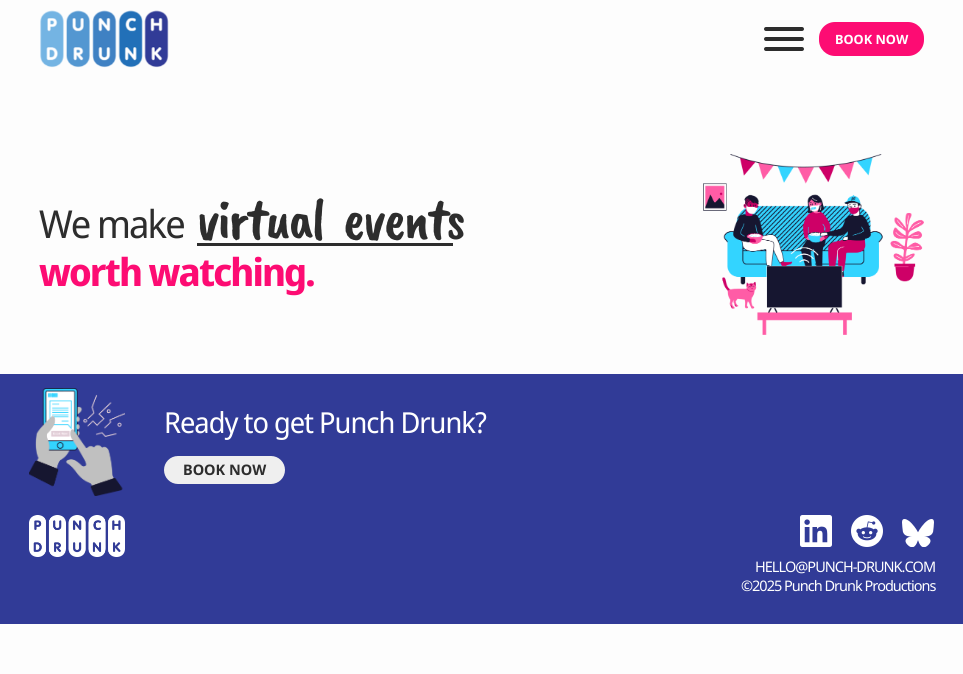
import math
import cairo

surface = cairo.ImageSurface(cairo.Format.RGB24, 963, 674)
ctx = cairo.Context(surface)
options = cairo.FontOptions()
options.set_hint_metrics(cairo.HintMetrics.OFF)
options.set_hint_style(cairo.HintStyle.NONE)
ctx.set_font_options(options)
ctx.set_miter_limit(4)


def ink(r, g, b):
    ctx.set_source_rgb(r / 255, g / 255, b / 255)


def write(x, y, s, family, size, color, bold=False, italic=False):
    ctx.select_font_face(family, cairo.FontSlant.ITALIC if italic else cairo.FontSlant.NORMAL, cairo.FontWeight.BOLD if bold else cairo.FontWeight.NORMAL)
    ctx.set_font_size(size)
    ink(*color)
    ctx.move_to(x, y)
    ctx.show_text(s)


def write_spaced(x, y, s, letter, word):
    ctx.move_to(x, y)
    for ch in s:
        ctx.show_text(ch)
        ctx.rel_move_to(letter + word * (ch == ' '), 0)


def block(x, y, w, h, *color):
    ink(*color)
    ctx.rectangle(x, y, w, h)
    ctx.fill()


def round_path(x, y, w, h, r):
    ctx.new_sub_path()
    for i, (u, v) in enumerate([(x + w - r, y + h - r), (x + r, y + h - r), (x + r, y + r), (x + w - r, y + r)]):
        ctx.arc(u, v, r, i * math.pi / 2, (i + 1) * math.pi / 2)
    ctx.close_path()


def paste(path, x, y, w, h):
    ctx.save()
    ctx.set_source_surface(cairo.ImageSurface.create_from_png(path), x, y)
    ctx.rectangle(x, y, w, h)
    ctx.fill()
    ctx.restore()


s1 = dict(family="Noto Sans", size=12.75, color=(255, 255, 255), bold=True)
s2 = dict(family="Noto Sans", size=14.5, color=(45, 45, 45), bold=True)

ink(253, 253, 253)
ctx.paint()
paste("pic1.png", 40, 10, 129, 58)
ink(45, 45, 45)
round_path(764, 47, 40, 4, 2)
ctx.fill()
round_path(764, 27, 40, 4, 2)
ctx.fill()
round_path(764, 37, 40, 4, 2)
ctx.fill()
ink(253, 12, 115)
round_path(819, 22, 105, 34, 16)
ctx.fill()
write(835, 44, "BOOK NOW", **s1)
ctx.select_font_face("Noto Sans Display")
ctx.set_font_size(38.5)
ink(45, 45, 45)
write_spaced(39, 238, "We make", -1.9, 0)
block(197, 243, 256, 3, 45, 45, 45)
ctx.select_font_face("Caveat Brush")
ctx.set_font_size(58)
write_spaced(197, 238, "virtual", -1.9, 0)
write_spaced(343, 238, "events", -1.9, 0)
ctx.select_font_face("Noto Sans Display", cairo.FontSlant.NORMAL, cairo.FontWeight.BOLD)
ctx.set_font_size(38.5)
ink(253, 12, 115)
write_spaced(39, 286, "worth watching.", -1.9, 0)
paste("pic2.png", 703, 154, 221, 181)
block(0, 374, 963, 250, 49, 59, 151)
paste("pic3.png", 29, 388, 96, 108)
ctx.select_font_face("Noto Sans Display")
ctx.set_font_size(28.9)
ink(255, 255, 255)
write_spaced(164, 433, "Ready to get Punch Drunk?", -1, 0)
ink(239, 239, 239)
round_path(164, 456, 121, 28, 14)
ctx.fill()
write(183, 475, "BOOK NOW", **s2)
paste("pic4.png", 29, 515, 96, 42)
paste("pic5.png", 800, 515, 32, 32)
paste("pic6.png", 851, 515, 32, 32)
paste("pic7.png", 902, 519, 32, 28)
ctx.select_font_face("Noto Sans")
ink(255, 255, 255)
write_spaced(755, 572, "HELLO@PUNCH-DRUNK.COM", -1, 0)
write_spaced(741, 591, "©2025 Punch Drunk Productions", -1, 0)
surface.write_to_png("screenshot.png")
